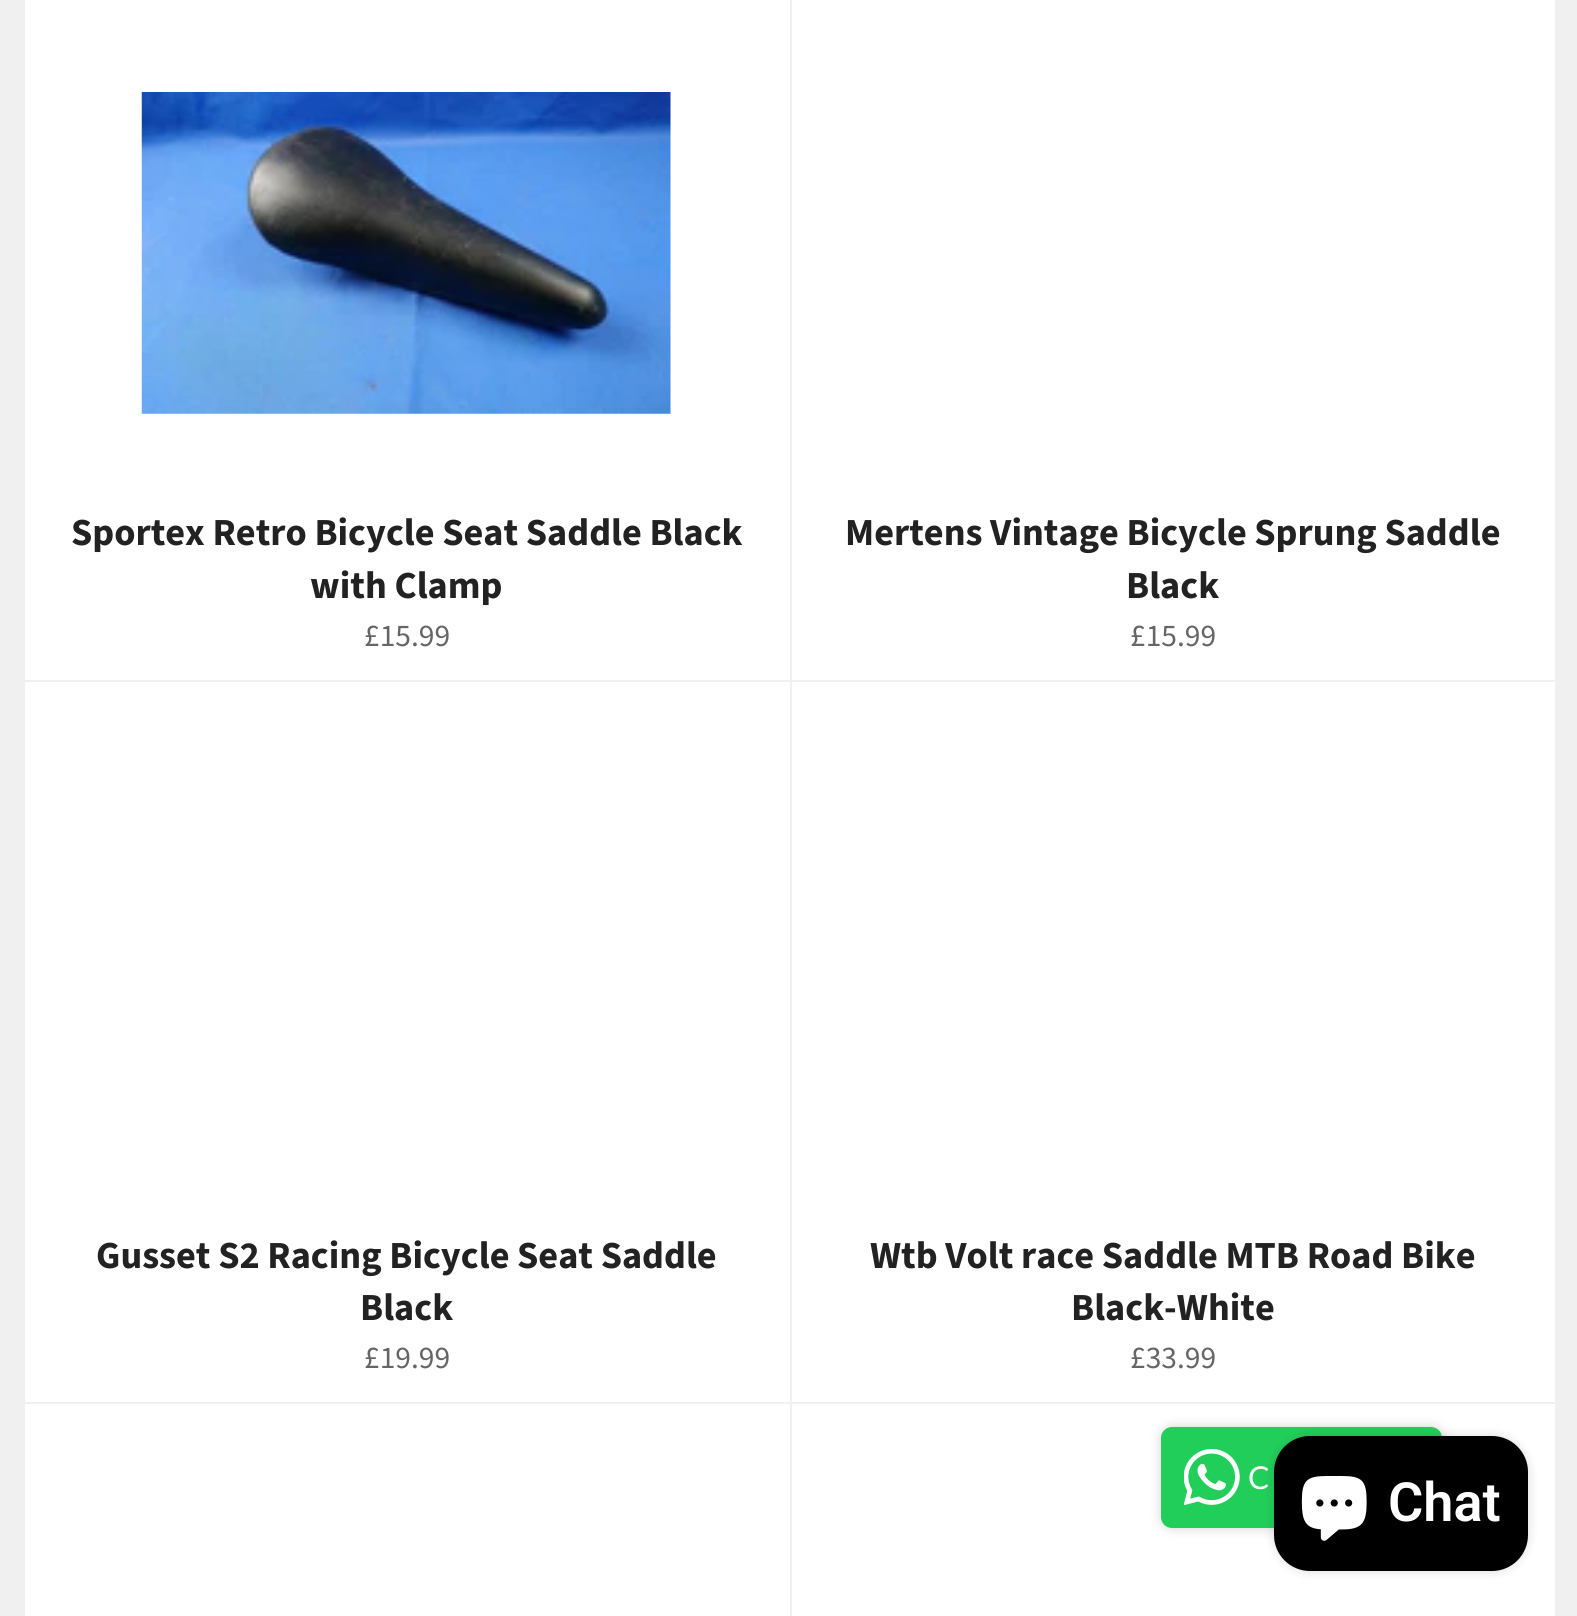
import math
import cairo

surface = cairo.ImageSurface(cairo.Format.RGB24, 1577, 1616)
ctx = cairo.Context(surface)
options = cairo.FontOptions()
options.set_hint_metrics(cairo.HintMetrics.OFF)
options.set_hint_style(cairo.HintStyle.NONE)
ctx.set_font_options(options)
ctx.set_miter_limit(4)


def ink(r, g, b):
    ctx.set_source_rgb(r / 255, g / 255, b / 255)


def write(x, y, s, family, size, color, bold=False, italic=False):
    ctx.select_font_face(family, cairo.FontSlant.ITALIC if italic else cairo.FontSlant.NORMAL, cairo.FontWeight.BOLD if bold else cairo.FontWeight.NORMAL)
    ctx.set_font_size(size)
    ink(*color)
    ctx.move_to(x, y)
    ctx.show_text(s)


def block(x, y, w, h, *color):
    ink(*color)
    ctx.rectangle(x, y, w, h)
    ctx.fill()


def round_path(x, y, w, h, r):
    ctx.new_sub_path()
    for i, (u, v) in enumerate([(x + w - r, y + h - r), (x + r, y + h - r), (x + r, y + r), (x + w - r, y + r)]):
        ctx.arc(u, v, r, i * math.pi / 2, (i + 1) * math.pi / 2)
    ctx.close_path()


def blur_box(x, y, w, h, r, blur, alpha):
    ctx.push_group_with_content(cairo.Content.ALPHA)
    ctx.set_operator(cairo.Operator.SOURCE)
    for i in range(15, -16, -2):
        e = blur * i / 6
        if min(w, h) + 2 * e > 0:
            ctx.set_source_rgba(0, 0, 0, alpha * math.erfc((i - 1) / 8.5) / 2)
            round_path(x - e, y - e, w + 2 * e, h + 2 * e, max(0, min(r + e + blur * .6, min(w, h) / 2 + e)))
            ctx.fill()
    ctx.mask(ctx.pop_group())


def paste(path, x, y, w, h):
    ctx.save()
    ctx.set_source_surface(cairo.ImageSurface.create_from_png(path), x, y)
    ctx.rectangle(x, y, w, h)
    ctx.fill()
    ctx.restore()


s1 = dict(family="Source Sans Pro", size=38.25, color=(34, 34, 34), bold=True)
s2 = dict(family="Source Sans Pro", size=31.5, color=(102, 102, 102))
s3 = dict(family="Lato", size=31.5, color=(255, 255, 255))
s4 = dict(family="Roboto SemiBold", size=54, color=(255, 255, 255))

ink(240, 240, 240)
ctx.paint()
block(25, 0, 765, 680, 255, 255, 255)
paste("pic1.png", 141, 92, 530, 322)
write(71, 545, "Sportex Retro Bicycle Seat Saddle Black", **s1)
write(310, 598, "with Clamp", **s1)
write(364, 646, "£15.99", **s2)
block(792, 0, 763, 680, 255, 255, 255)
write(845, 545, "Mertens Vintage Bicycle Sprung Saddle", **s1)
write(1126, 598, "Black", **s1)
write(1130, 646, "£15.99", **s2)
block(25, 682, 765, 720, 255, 255, 255)
write(96, 1268, "Gusset S2 Racing Bicycle Seat Saddle", **s1)
write(360, 1320, "Black", **s1)
write(364, 1368, "£19.99", **s2)
block(792, 682, 763, 720, 255, 255, 255)
write(870, 1268, "Wtb Volt race Saddle MTB Road Bike", **s1)
write(1071, 1320, "Black-White", **s1)
write(1130, 1368, "£33.99", **s2)
block(25, 1404, 765, 212, 255, 255, 255)
block(792, 1404, 763, 212, 255, 255, 255)
ink(211, 211, 211)
blur_box(1161, 1427, 281, 101, 11, 5.5, 1)
ink(34, 206, 90)
round_path(1161, 1427, 281, 101, 11)
ctx.fill()
paste("pic2.png", 1184, 1449, 56, 56)
write(1248, 1489, "C", **s3)
ink(0, 0, 0)
blur_box(1274, 1436, 254, 135, 36, 5.5, 0.15)
ink(0, 0, 0)
round_path(1274, 1436, 254, 135, 36)
ctx.fill()
paste("pic3.png", 1301, 1476, 66, 65)
write(1388, 1521, "Chat", **s4)
surface.write_to_png("screenshot.png")
